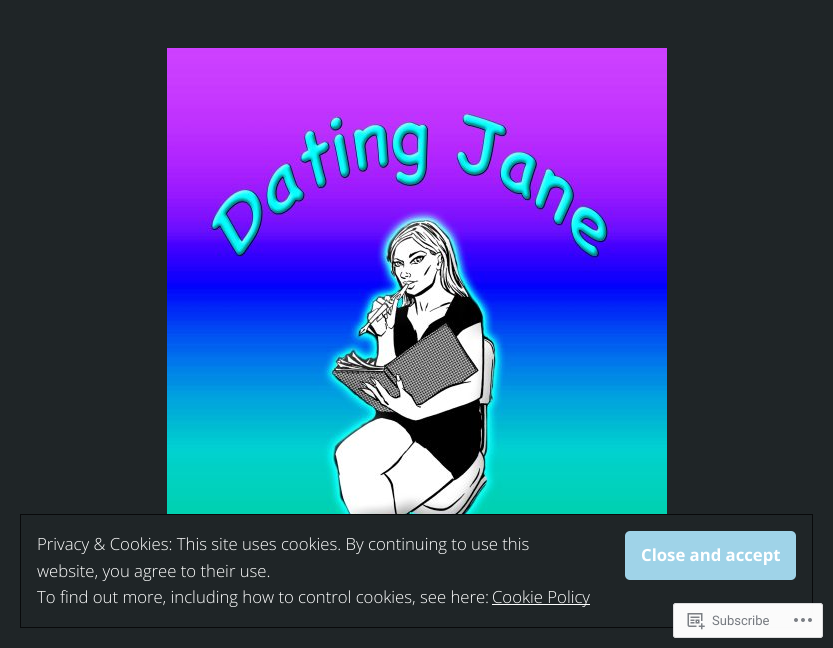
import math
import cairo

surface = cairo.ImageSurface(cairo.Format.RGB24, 833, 648)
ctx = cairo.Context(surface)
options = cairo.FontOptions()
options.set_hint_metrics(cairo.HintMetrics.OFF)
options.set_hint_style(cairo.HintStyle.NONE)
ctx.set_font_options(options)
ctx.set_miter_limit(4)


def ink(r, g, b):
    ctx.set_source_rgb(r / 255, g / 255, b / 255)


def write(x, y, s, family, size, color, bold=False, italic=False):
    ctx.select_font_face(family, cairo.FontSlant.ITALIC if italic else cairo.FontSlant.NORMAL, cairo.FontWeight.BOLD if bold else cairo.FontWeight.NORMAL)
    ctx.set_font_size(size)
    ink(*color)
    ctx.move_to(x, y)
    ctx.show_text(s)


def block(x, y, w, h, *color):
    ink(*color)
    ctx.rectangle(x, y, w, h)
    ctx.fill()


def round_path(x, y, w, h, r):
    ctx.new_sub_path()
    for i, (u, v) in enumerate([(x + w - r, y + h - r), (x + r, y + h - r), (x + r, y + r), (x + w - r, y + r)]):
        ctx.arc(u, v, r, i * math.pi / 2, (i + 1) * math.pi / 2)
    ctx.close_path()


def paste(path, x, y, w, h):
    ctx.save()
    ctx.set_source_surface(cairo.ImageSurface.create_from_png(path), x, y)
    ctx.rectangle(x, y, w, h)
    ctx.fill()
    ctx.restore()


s1 = dict(family="Open Sans Light", size=16.7, color=(255, 255, 255))
s2 = dict(family="Open Sans", size=16.7, color=(255, 255, 255), bold=True)
s3 = dict(family="Roboto", size=13, color=(118, 122, 128))

ink(31, 37, 39)
ctx.paint()
paste("pic1.png", 167, 48, 500, 466)
ctx.rectangle(20.5, 514.5, 792, 113)
ink(9, 10, 11)
ctx.set_line_width(1)
ctx.stroke()
write(37, 550, "Privacy & Cookies: This site uses cookies. By continuing to use this", **s1)
ink(159, 211, 232)
round_path(625, 531, 171, 49, 5)
ctx.fill()
write(641, 561, "Close and accept", **s2)
write(37, 577, "website, you agree to their use.", **s1)
write(37, 603, "To find out more, including how to control cookies, see here:", **s1)
block(492, 604, 98, 1, 255, 255, 255)
write(492, 603, "Cookie Policy", **s1)
ctx.set_source_rgba(1, 1, 1, 0.98)
round_path(673, 603, 150, 35, 3)
ctx.fill()
round_path(673.5, 603.5, 149, 34, 2.5)
ctx.set_source_rgba(0.863, 0.863, 0.871, 0.98)
ctx.stroke()
paste("pic2.png", 687, 613, 18, 17)
write(712, 625, "Subscribe", **s3)
paste("pic3.png", 794, 618, 18, 4)
surface.write_to_png("screenshot.png")
